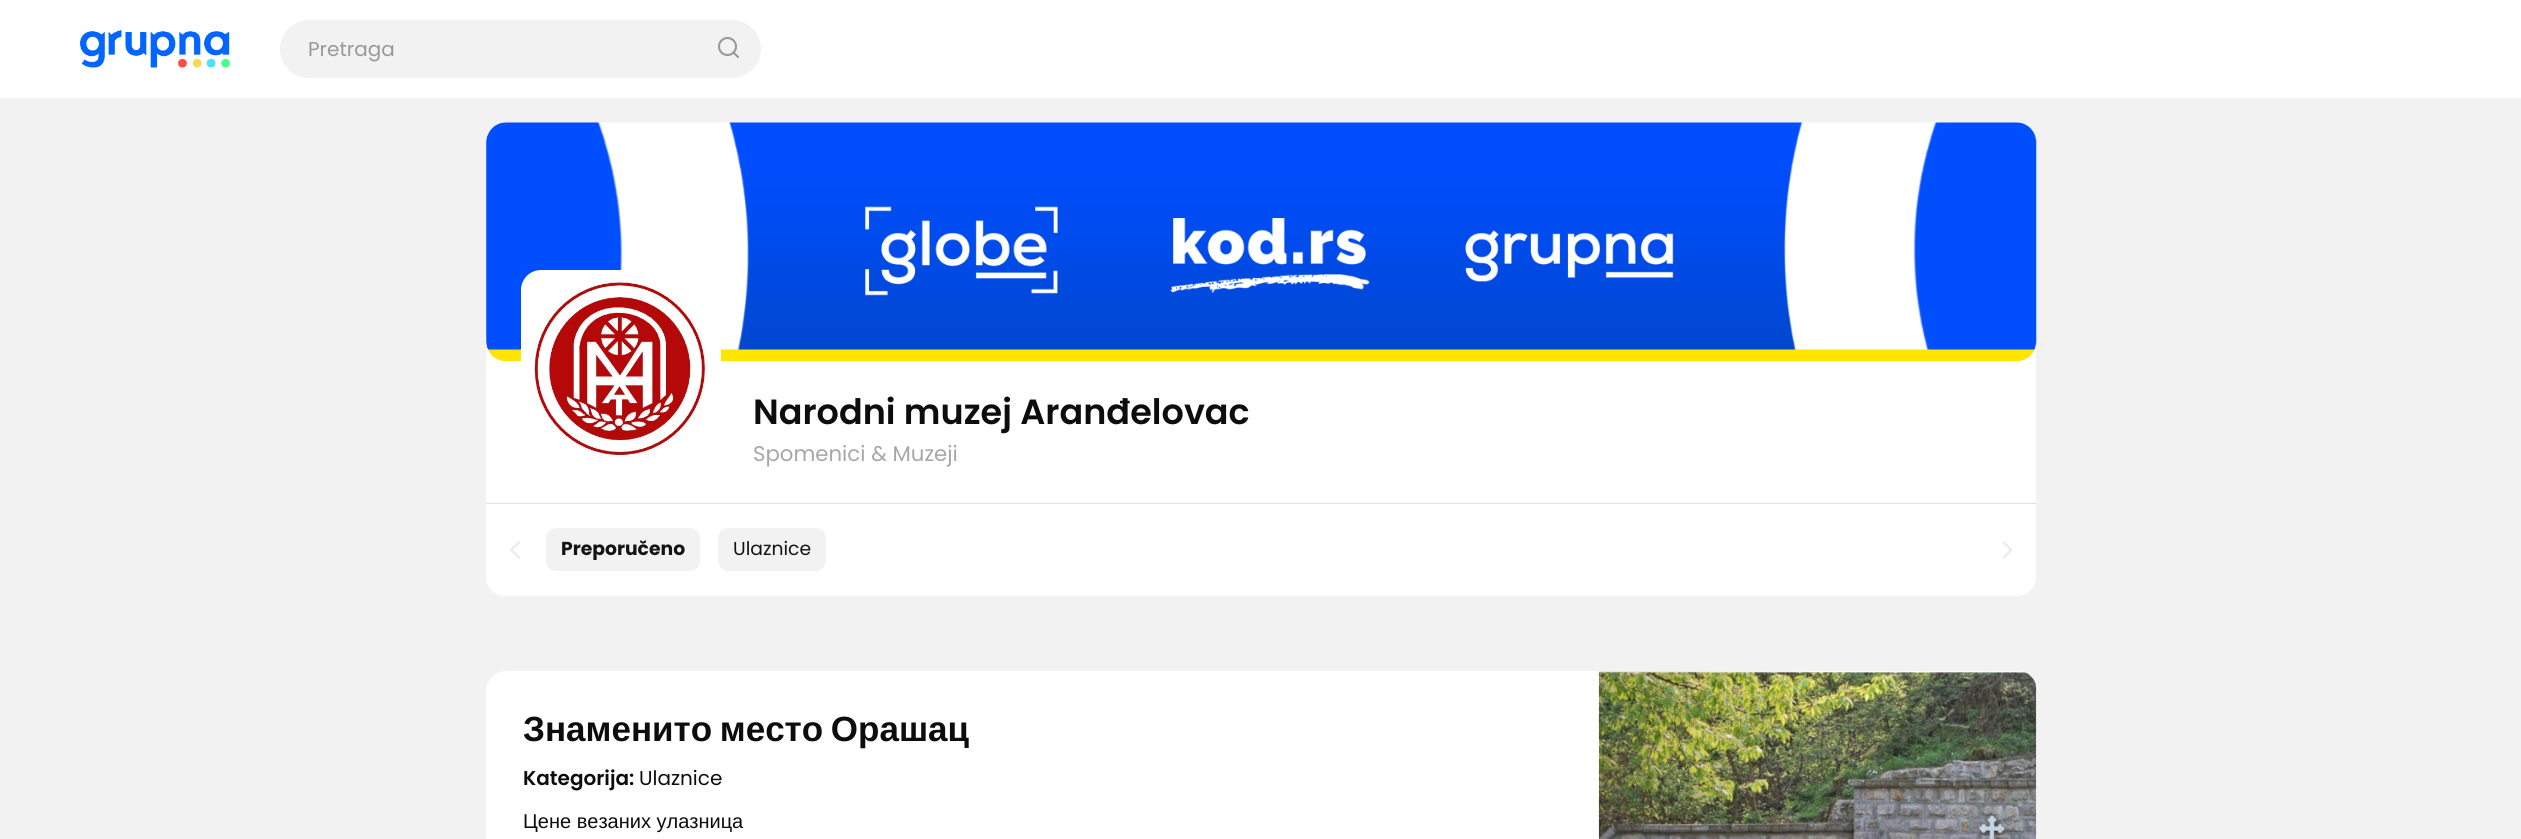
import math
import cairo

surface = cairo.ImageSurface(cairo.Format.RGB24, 2521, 839)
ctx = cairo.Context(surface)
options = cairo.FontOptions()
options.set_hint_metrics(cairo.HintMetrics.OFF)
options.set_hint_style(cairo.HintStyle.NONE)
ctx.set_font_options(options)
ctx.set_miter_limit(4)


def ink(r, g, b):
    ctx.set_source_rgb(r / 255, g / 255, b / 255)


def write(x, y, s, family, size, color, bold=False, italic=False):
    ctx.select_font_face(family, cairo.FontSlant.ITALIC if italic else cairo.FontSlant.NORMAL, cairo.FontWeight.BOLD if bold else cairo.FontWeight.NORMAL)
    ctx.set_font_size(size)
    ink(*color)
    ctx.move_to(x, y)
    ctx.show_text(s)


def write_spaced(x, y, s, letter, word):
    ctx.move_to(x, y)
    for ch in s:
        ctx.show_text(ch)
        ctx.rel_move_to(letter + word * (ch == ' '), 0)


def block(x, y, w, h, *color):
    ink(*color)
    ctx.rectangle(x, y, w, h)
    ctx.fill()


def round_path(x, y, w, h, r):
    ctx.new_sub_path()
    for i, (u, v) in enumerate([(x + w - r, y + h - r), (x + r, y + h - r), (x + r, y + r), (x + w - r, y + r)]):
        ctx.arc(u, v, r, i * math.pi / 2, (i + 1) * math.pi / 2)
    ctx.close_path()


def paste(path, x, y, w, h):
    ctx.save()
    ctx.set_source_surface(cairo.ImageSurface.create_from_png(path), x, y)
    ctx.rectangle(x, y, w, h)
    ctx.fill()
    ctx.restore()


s1 = dict(family="Poppins", size=20, color=(153, 153, 153))
s2 = dict(family="Poppins SemiBold", size=35, color=(13, 13, 13))
s3 = dict(family="Poppins", size=21.25, color=(167, 167, 167))
s4 = dict(family="Poppins", size=18.75, color=(20, 20, 20), bold=True)
s5 = dict(family="Poppins", size=18.75, color=(20, 20, 20))
s6 = dict(family="Poppins SemiBold", size=20, color=(13, 13, 13))
s7 = dict(family="Poppins", size=20, color=(13, 13, 13))
s8 = dict(family="Liberation Sans", size=20, color=(13, 13, 13))

ink(242, 242, 242)
ctx.paint()
block(0, 0, 2521, 98, 255, 255, 255)
paste("pic1.png", 80, 30, 150, 38)
ink(242, 242, 242)
round_path(280, 20, 481, 58, 29)
ctx.fill()
write(308, 56, "Pretraga", **s1)
ctx.new_path()
ctx.arc(727.5, 46.5, 8.5, 0, 2 * math.pi)
ctx.set_line_width(2.1)
ctx.stroke()
ctx.new_path()
ctx.move_to(738, 57)
ctx.line_to(733.5, 52.5)
ctx.set_line_cap(cairo.LineCap.ROUND)
ctx.set_line_join(cairo.LineJoin.ROUND)
ctx.stroke()
block(486, 336, 1550, 167, 255, 255, 255)
paste("pic2.png", 486, 122, 1551, 240)
round_path(523.5, 272.5, 195, 195, 17.5)
ctx.fill_preserve()
ctx.set_line_width(5)
ctx.set_line_cap(cairo.LineCap.BUTT)
ctx.set_line_join(cairo.LineJoin.MITER)
ctx.stroke()
paste("pic3.png", 532, 275, 176, 182)
write(753, 424, "Narodni muzej Aranđelovac", **s2)
write(753, 461, "Spomenici & Muzeji", **s3)
ink(255, 255, 255)
ctx.new_path()
ctx.move_to(486, 503)
ctx.line_to(2036, 503)
ctx.line_to(2036, 577)
ctx.curve_to(2036, 587.5, 2027.5, 596, 2017, 596)
ctx.line_to(505, 596)
ctx.curve_to(494.5, 596, 486, 587.5, 486, 577)
ctx.close_path()
ctx.fill()
block(486, 503, 1550, 1, 224, 224, 224)
ctx.new_path()
ctx.move_to(519, 557.5)
ctx.line_to(511, 550)
ctx.line_to(519, 542.5)
ink(236, 236, 236)
ctx.set_line_width(2.5)
ctx.set_line_cap(cairo.LineCap.ROUND)
ctx.set_line_join(cairo.LineJoin.ROUND)
ctx.stroke()
ink(242, 242, 242)
round_path(546, 528, 154, 43, 10)
ctx.fill()
write(561, 555, "Preporučeno", **s4)
ink(242, 242, 242)
round_path(718, 528, 108, 43, 10)
ctx.fill()
write(733, 555, "Ulaznice", **s5)
ctx.new_path()
ctx.move_to(2004, 557.5)
ctx.line_to(2011, 550)
ctx.line_to(2004, 542.5)
ink(236, 236, 236)
ctx.stroke()
ink(255, 255, 255)
round_path(486, 671, 1550, 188, 20)
ctx.fill()
ctx.select_font_face("Liberation Sans", cairo.FontSlant.NORMAL, cairo.FontWeight.BOLD)
ctx.set_font_size(35)
ink(13, 13, 13)
write_spaced(523, 741, "Знаменито место Орашац", 0, -2)
write(523, 785, "Kategorija:", **s6)
write(639, 785, "Ulaznice", **s7)
write(523, 828, "Цене везаних улазница", **s8)
paste("pic4.png", 1598, 671, 439, 168)
surface.write_to_png("screenshot.png")
